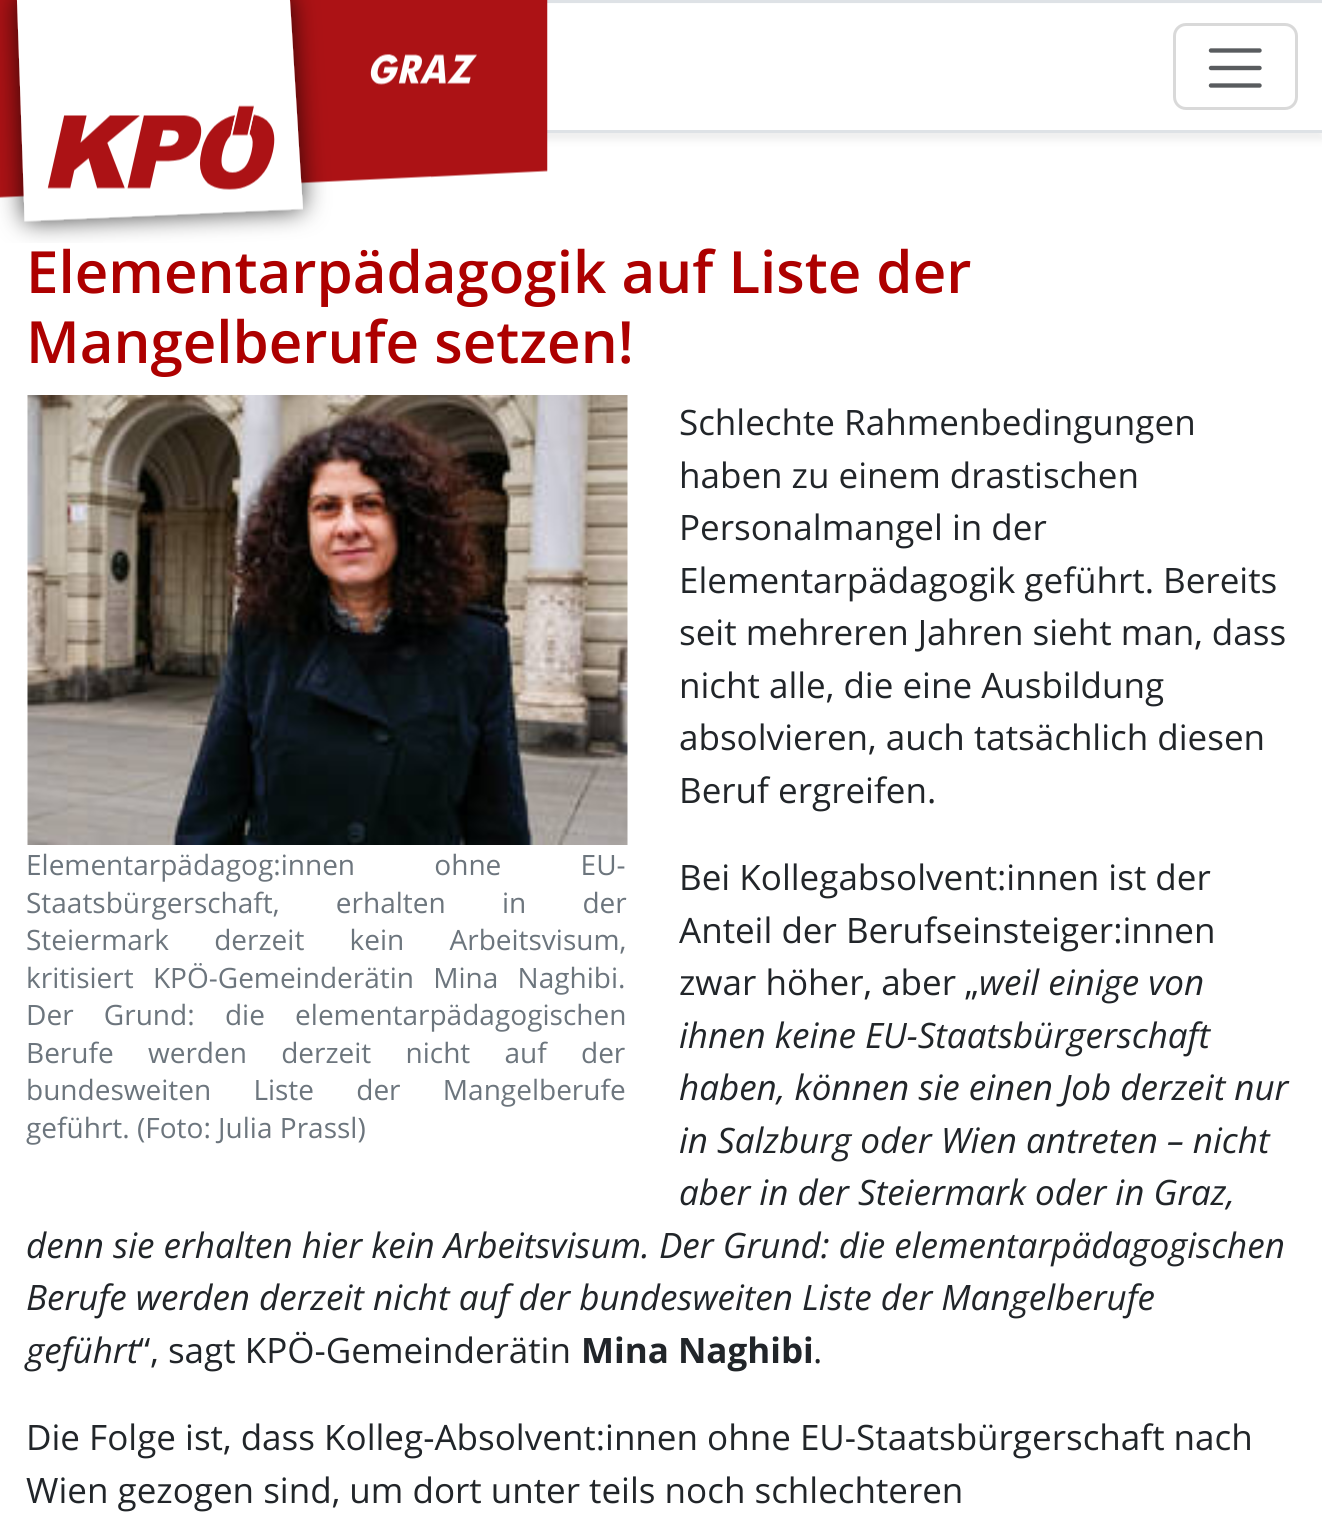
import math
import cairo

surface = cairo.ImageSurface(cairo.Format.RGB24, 1322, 1531)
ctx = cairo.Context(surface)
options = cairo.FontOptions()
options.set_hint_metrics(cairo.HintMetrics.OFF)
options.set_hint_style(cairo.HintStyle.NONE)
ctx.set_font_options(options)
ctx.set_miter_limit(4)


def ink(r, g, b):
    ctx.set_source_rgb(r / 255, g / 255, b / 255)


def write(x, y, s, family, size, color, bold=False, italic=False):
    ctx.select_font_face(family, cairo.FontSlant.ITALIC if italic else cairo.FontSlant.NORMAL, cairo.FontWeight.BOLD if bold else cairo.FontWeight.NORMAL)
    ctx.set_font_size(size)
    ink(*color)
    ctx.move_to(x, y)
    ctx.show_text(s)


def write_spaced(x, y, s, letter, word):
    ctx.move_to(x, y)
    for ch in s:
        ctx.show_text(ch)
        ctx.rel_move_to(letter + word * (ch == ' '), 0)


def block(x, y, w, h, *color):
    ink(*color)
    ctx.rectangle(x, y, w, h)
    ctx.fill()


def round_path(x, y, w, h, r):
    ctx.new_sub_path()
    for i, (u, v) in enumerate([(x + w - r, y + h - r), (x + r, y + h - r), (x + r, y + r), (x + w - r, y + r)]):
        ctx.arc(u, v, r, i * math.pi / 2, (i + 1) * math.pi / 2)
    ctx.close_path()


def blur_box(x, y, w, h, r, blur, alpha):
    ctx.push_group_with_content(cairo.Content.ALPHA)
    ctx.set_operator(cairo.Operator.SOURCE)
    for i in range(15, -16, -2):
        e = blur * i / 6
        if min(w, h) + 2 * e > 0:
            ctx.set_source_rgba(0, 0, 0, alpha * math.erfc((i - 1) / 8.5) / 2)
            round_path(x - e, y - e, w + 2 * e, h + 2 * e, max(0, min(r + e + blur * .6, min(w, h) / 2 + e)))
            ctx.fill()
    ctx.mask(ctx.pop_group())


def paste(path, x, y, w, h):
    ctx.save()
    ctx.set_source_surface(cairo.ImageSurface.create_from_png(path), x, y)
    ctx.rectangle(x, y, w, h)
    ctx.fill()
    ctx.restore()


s1 = dict(family="Open Sans SemiBold", size=58.25, color=(173, 0, 0))
s2 = dict(family="Open Sans", size=35, color=(33, 37, 41))
s3 = dict(family="Open Sans", size=35, color=(33, 37, 41), italic=True)
s4 = dict(family="Open Sans", size=35, color=(33, 37, 41), bold=True)
s5 = dict(family="Open Sans", size=28, color=(108, 117, 125))

ink(255, 255, 255)
ctx.paint()
ink(238, 238, 238)
blur_box(0, 8, 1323, 132, 0, 4, 1)
block(547, 4, 775, 126, 255, 255, 255)
block(547, 0, 775, 3, 222, 226, 230)
block(547, 130, 775, 3, 222, 226, 230)
paste("pic1.png", 0, 0, 548, 243)
round_path(1174.5, 24.5, 122, 84, 11.5)
ink(217, 217, 217)
ctx.set_line_width(3)
ctx.stroke()
ctx.new_path()
ctx.move_to(1211, 50.5)
ctx.line_to(1259.5, 50.5)
ctx.move_to(1211, 68)
ctx.line_to(1259.5, 68)
ctx.move_to(1211, 85.5)
ctx.line_to(1259.5, 85.5)
ink(89, 92, 95)
ctx.set_line_width(4.4)
ctx.set_line_cap(cairo.LineCap.ROUND)
ctx.stroke()
write(26, 293, "Elementarpädagogik auf Liste der", **s1)
write(26, 363, "Mangelberufe setzen!", **s1)
write(679, 435, "Schlechte Rahmenbedingungen", **s2)
write(679, 488, "haben zu einem drastischen", **s2)
write(679, 540, "Personalmangel in der", **s2)
write(679, 593, "Elementarpädagogik geführt. Bereits", **s2)
write(679, 645, "seit mehreren Jahren sieht man, dass", **s2)
write(679, 698, "nicht alle, die eine Ausbildung", **s2)
write(679, 750, "absolvieren, auch tatsächlich diesen", **s2)
write(679, 803, "Beruf ergreifen.", **s2)
write(679, 890, "Bei Kollegabsolvent:innen ist der", **s2)
write(679, 943, "Anteil der Berufseinsteiger:innen", **s2)
write(679, 995, "zwar höher, aber „", **s2)
write(979, 995, "weil einige von", **s3)
write(679, 1048, "ihnen keine EU-Staatsbürgerschaft", **s3)
write(679, 1100, "haben, können sie einen Job derzeit nur", **s3)
write(679, 1153, "in Salzburg oder Wien antreten – nicht", **s3)
write(679, 1205, "aber in der Steiermark oder in Graz,", **s3)
write(26, 1258, "denn sie erhalten hier kein Arbeitsvisum. Der Grund: die elementarpädagogischen", **s3)
write(26, 1310, "Berufe werden derzeit nicht auf der bundesweiten Liste der Mangelberufe", **s3)
write(26, 1363, "geführt", **s3)
write(138, 1363, "“, sagt KPÖ-Gemeinderätin", **s2)
write(581, 1363, "Mina Naghibi", **s4)
write(813, 1363, ".", **s2)
write(26, 1450, "Die Folge ist, dass Kolleg-Absolvent:innen ohne EU-Staatsbürgerschaft nach", **s2)
write(26, 1503, "Wien gezogen sind, um dort unter teils noch schlechteren", **s2)
paste("pic2.png", 27, 395, 601, 450)
ctx.set_font_size(28)
ink(108, 117, 125)
write_spaced(26, 875, "Elementarpädagog:innen ohne EU-", 0, 72)
write_spaced(26, 913, "Staatsbürgerschaft, erhalten in der", 0, 49)
write_spaced(26, 950, "Steiermark derzeit kein Arbeitsvisum,", 0, 38)
write_spaced(26, 988, "kritisiert KPÖ-Gemeinderätin Mina Naghibi.", 0, 12)
write_spaced(26, 1025, "Der Grund: die elementarpädagogischen", 0, 23)
write_spaced(26, 1063, "Berufe werden derzeit nicht auf der", 0, 27)
write_spaced(26, 1100, "bundesweiten Liste der Mangelberufe", 0, 35)
write(26, 1138, "geführt. (Foto: Julia Prassl)", **s5)
surface.write_to_png("screenshot.png")
